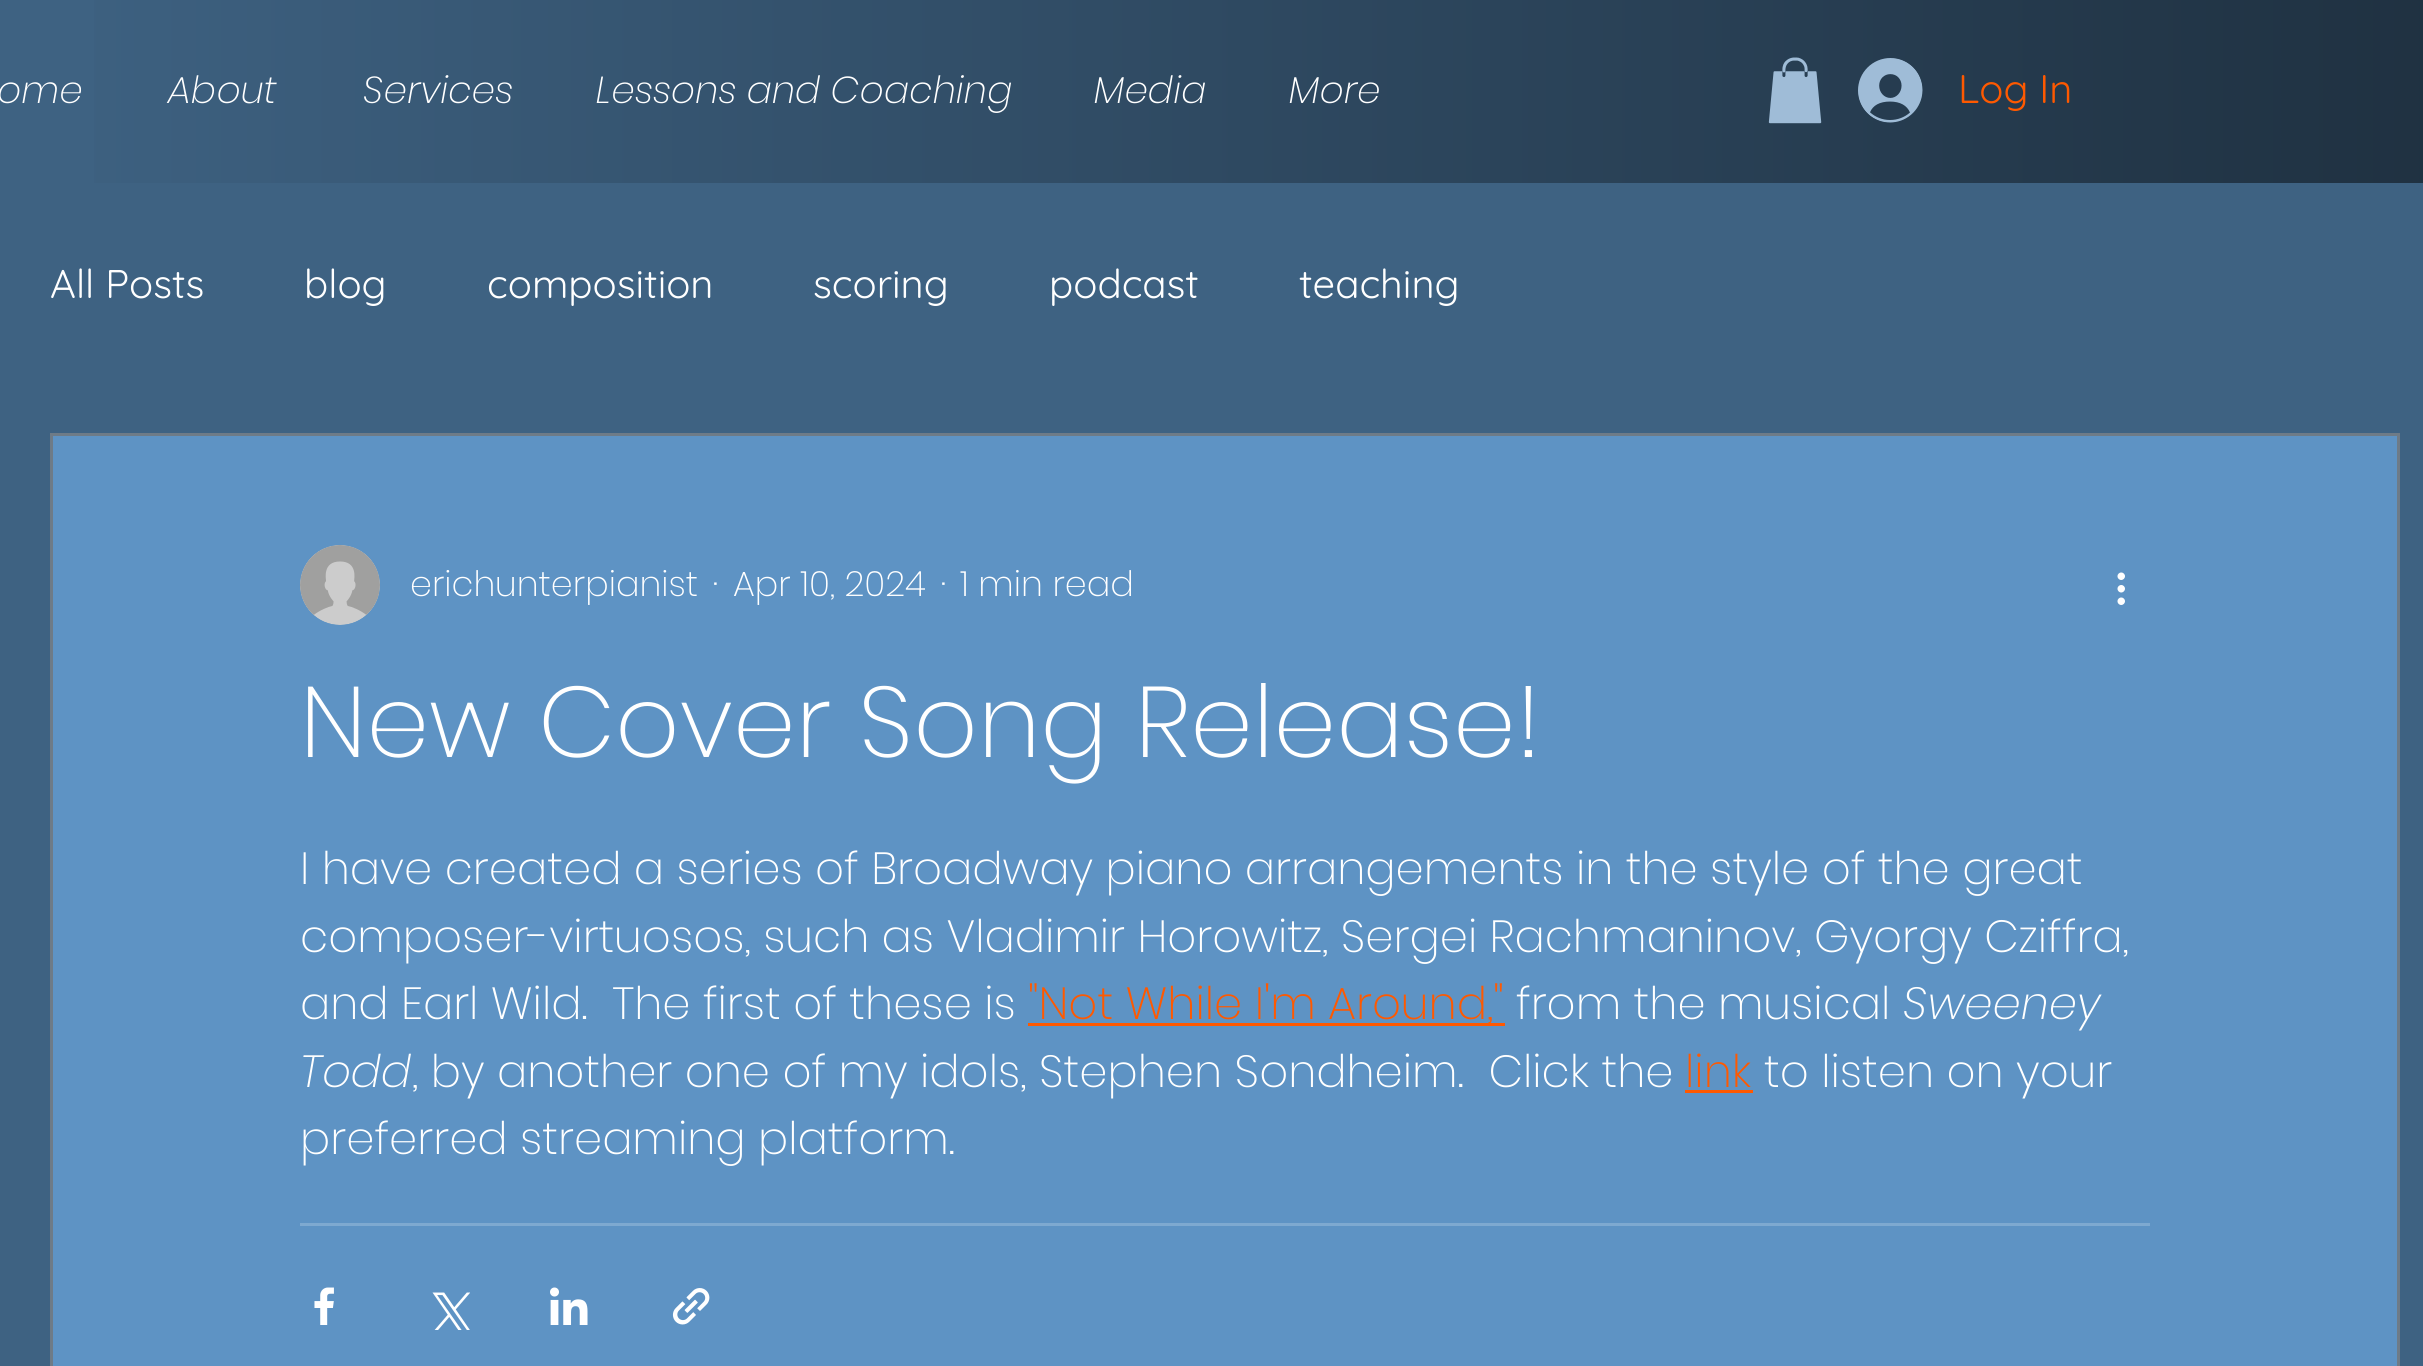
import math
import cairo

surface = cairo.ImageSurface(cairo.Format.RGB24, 2423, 1366)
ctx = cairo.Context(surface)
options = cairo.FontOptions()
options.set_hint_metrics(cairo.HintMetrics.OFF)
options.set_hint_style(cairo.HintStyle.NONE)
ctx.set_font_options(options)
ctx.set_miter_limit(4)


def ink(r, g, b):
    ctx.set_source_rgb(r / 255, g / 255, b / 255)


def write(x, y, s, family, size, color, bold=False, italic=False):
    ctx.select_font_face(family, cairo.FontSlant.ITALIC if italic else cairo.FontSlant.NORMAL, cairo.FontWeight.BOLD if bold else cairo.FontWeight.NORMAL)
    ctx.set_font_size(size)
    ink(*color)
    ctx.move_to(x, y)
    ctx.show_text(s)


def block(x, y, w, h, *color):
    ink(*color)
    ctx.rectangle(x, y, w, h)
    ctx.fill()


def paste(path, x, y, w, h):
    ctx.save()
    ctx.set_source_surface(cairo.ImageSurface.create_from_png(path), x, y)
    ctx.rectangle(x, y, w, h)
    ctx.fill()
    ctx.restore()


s1 = dict(family="Poppins ExtraLight", size=37.5, color=(255, 255, 255), italic=True)
s2 = dict(family="Quicksand", size=40, color=(255, 89, 0))
s3 = dict(family="Quicksand", size=40, color=(255, 255, 255))
s4 = dict(family="Poppins ExtraLight", size=35, color=(255, 255, 255))
s5 = dict(family="Poppins ExtraLight", size=100, color=(255, 255, 255))
s6 = dict(family="Poppins ExtraLight", size=45, color=(255, 255, 255))
s7 = dict(family="Poppins ExtraLight", size=45, color=(255, 89, 0))
s8 = dict(family="Poppins ExtraLight", size=45, color=(255, 255, 255), italic=True)

ink(62, 98, 130)
ctx.paint()
gradient = cairo.LinearGradient(0, 91, 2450, 91)
gradient.add_color_stop_rgba(0, 0.243, 0.384, 0.51, 1)
gradient.add_color_stop_rgba(1, 0.122, 0.192, 0.255, 1)
ctx.set_source(gradient)
ctx.rectangle(94, 0, 2329, 183)
ctx.fill()
write(-3, 103, "ome", **s1)
write(168, 103, "About", **s1)
write(363, 103, "Services", **s1)
write(596, 103, "Lessons and Coaching", **s1)
write(1094, 103, "Media", **s1)
write(1289, 103, "More", **s1)
paste("pic1.png", 1768, 57, 54, 67)
paste("pic2.png", 1858, 58, 65, 65)
write(1958, 103, "Log In", **s2)
write(50, 298, "All Posts", **s3)
write(304, 298, "blog", **s3)
write(487, 298, "composition", **s3)
write(813, 298, "scoring", **s3)
write(1049, 298, "podcast", **s3)
write(1299, 298, "teaching", **s3)
ink(94, 147, 196)
ctx.rectangle(51.5, 434.5, 2347, 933)
ctx.fill_preserve()
ink(110, 123, 135)
ctx.set_line_width(3)
ctx.stroke()
paste("pic3.png", 300, 545, 80, 80)
write(410, 596, "erichunterpianist", **s4)
write(713, 596, "·", **s4)
write(733, 596, "Apr 10, 2024", **s4)
write(941, 596, "·", **s4)
write(960, 596, "1 min read", **s4)
paste("pic4.png", 2117, 572, 8, 33)
write(300, 757, "New Cover Song Release!", **s5)
write(300, 884, "I have created a series of Broadway piano arrangements in the style of the great", **s6)
write(300, 952, "composer-virtuosos, such as Vladimir Horowitz, Sergei Rachmaninov, Gyorgy Cziffra,", **s6)
write(300, 1019, "and Earl Wild.  The first of these is", **s6)
block(1028, 1023, 477, 3, 255, 89, 0)
write(1028, 1019, "\"Not While I'm Around,\"", **s7)
write(1516, 1019, "from the musical", **s6)
write(1903, 1019, "Sweeney", **s8)
write(300, 1087, "Todd", **s8)
write(412, 1087, ", by another one of my idols, Stephen Sondheim.  Click the", **s6)
write(1685, 1087, "link", **s7)
block(1685, 1090, 68, 3, 255, 89, 0)
write(1764, 1087, "to listen on your", **s6)
write(300, 1154, "preferred streaming platform.", **s6)
block(300, 1223, 1850, 3, 126, 169, 208)
paste("pic5.png", 314, 1287, 20, 38)
paste("pic6.png", 432, 1292, 38, 38)
paste("pic7.png", 550, 1287, 38, 38)
paste("pic8.png", 672, 1288, 38, 37)
surface.write_to_png("screenshot.png")
